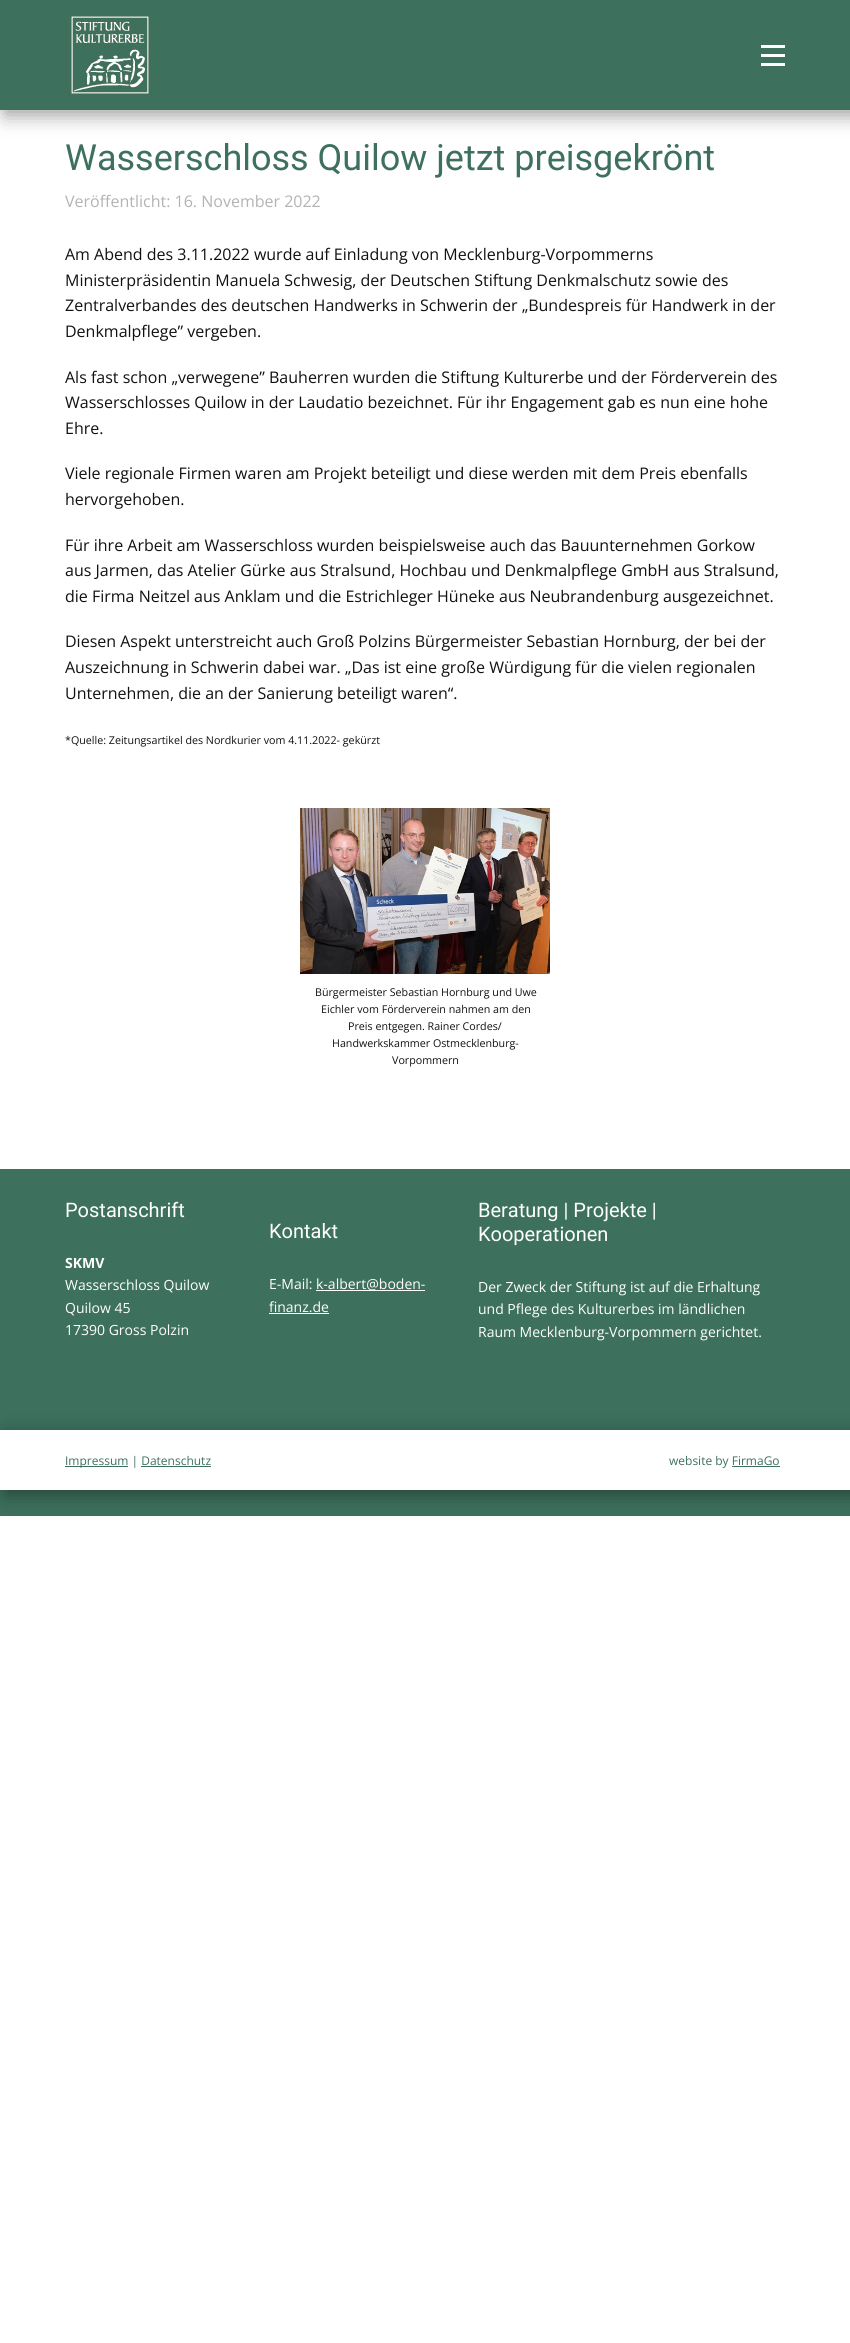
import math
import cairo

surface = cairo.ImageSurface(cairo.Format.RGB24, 850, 2343)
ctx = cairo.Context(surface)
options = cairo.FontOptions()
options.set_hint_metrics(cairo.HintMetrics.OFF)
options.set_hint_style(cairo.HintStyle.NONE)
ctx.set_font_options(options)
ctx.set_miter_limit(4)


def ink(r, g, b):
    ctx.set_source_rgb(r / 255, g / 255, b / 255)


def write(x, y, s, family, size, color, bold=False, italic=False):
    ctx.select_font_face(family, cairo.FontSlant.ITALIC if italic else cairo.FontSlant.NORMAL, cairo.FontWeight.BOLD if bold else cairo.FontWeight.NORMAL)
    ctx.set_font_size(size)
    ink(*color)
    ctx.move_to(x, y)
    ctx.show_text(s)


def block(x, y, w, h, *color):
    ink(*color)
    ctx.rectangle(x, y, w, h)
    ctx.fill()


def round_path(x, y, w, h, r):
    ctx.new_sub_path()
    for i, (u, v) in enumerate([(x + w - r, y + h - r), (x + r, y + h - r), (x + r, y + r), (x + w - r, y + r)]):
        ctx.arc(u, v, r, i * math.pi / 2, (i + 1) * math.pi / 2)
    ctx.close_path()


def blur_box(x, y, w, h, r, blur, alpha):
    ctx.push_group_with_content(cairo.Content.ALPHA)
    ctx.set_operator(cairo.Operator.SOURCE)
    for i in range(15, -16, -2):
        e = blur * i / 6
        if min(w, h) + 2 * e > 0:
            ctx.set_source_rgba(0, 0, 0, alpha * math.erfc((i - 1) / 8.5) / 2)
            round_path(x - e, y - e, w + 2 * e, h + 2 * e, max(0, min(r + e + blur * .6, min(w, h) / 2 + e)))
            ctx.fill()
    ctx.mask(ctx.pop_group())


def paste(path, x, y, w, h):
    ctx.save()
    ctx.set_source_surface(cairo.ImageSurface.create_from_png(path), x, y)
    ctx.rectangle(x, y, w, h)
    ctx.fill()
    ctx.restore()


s1 = dict(family="Roboto", size=36, color=(61, 112, 93))
s2 = dict(family="Open Sans", size=16, color=(179, 179, 179))
s3 = dict(family="Open Sans", size=16, color=(17, 17, 17))
s4 = dict(family="Open Sans", size=10.7, color=(17, 17, 17))
s5 = dict(family="Roboto", size=20, color=(255, 255, 255))
s6 = dict(family="Open Sans", size=14, color=(255, 255, 255), bold=True)
s7 = dict(family="Open Sans", size=14, color=(255, 255, 255))
s8 = dict(family="Open Sans", size=12, color=(61, 112, 93))

ink(255, 255, 255)
ctx.paint()
ink(0, 0, 0)
blur_box(5, 5, 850, 110, 0, 10, 0.4)
block(0, 0, 850, 110, 61, 112, 93)
paste("pic1.png", 66, 11, 86, 87)
block(761, 45, 24, 3, 255, 255, 255)
block(761, 54, 24, 3, 255, 255, 255)
block(761, 63, 24, 3, 255, 255, 255)
write(65, 170, "Wasserschloss Quilow jetzt preisgekrönt", **s1)
write(65, 207, "Veröffentlicht: 16. November 2022", **s2)
write(65, 260, "Am Abend des 3.11.2022 wurde auf Einladung von Mecklenburg-Vorpommerns", **s3)
write(65, 286, "Ministerpräsidentin Manuela Schwesig, der Deutschen Stiftung Denkmalschutz sowie des", **s3)
write(65, 311, "Zentralverbandes des deutschen Handwerks in Schwerin der „Bundespreis für Handwerk in der", **s3)
write(65, 337, "Denkmalpflege” vergeben.", **s3)
write(65, 383, "Als fast schon „verwegene” Bauherren wurden die Stiftung Kulturerbe und der Förderverein des", **s3)
write(65, 408, "Wasserschlosses Quilow in der Laudatio bezeichnet. Für ihr Engagement gab es nun eine hohe", **s3)
write(65, 434, "Ehre.", **s3)
write(65, 479, "Viele regionale Firmen waren am Projekt beteiligt und diese werden mit dem Preis ebenfalls", **s3)
write(65, 505, "hervorgehoben.", **s3)
write(65, 551, "Für ihre Arbeit am Wasserschloss wurden beispielsweise auch das Bauunternehmen Gorkow", **s3)
write(65, 576, "aus Jarmen, das Atelier Gürke aus Stralsund, Hochbau und Denkmalpflege GmbH aus Stralsund,", **s3)
write(65, 602, "die Firma Neitzel aus Anklam und die Estrichleger Hüneke aus Neubrandenburg ausgezeichnet.", **s3)
write(65, 647, "Diesen Aspekt unterstreicht auch Groß Polzins Bürgermeister Sebastian Hornburg, der bei der", **s3)
write(65, 673, "Auszeichnung in Schwerin dabei war. „Das ist eine große Würdigung für die vielen regionalen", **s3)
write(65, 699, "Unternehmen, die an der Sanierung beteiligt waren“.", **s3)
write(65, 744, "*Quelle: Zeitungsartikel des Nordkurier vom 4.11.2022- gekürzt", **s4)
paste("pic2.png", 300, 808, 250, 166)
write(315, 996, "Bürgermeister Sebastian Hornburg und Uwe", **s4)
write(321, 1013, "Eichler vom Förderverein nahmen am den", **s4)
write(348, 1030, "Preis entgegen. Rainer Cordes/", **s4)
write(332, 1047, "Handwerkskammer Ostmecklenburg-", **s4)
write(392, 1064, "Vorpommern", **s4)
block(0, 1169, 850, 347, 61, 112, 93)
write(65, 1217, "Postanschrift", **s5)
write(65, 1268, "SKMV", **s6)
write(65, 1290, "Wasserschloss Quilow", **s7)
write(65, 1313, "Quilow 45", **s7)
write(65, 1335, "17390 Gross Polzin", **s7)
write(269, 1238, "Kontakt", **s5)
write(269, 1289, "E-Mail:", **s7)
block(316, 1290, 109, 1, 255, 255, 255)
write(316, 1289, "k-albert@boden-", **s7)
write(269, 1312, "finanz.de", **s7)
block(269, 1313, 60, 1, 255, 255, 255)
write(478, 1217, "Beratung | Projekte |", **s5)
write(478, 1241, "Kooperationen", **s5)
write(478, 1292, "Der Zweck der Stiftung ist auf die Erhaltung", **s7)
write(478, 1314, "und Pflege des Kulturerbes im ländlichen", **s7)
write(478, 1337, "Raum Mecklenburg-Vorpommern gerichtet.", **s7)
ink(0, 0, 0)
blur_box(5, 1435, 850, 60, 0, 10, 0.4)
block(0, 1430, 850, 60, 255, 255, 255)
block(65, 1466, 63, 1, 61, 112, 93)
write(65, 1465, "Impressum | Datenschutz", **s8)
block(141, 1466, 70, 1, 61, 112, 93)
write(669, 1465, "website by FirmaGo", **s8)
block(732, 1466, 48, 1, 61, 112, 93)
surface.write_to_png("screenshot.png")
